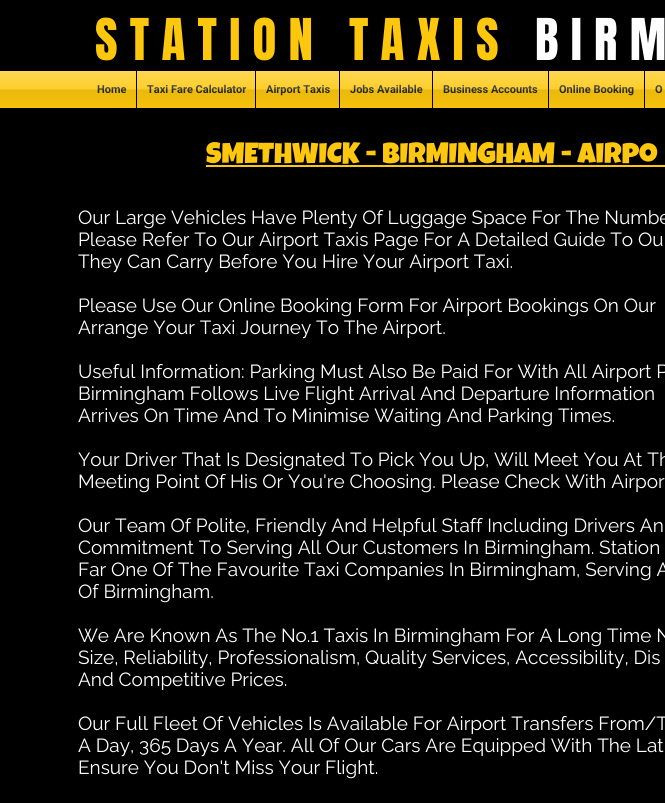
import math
import cairo

surface = cairo.ImageSurface(cairo.Format.RGB24, 665, 803)
ctx = cairo.Context(surface)
options = cairo.FontOptions()
options.set_hint_metrics(cairo.HintMetrics.OFF)
options.set_hint_style(cairo.HintStyle.NONE)
ctx.set_font_options(options)
ctx.set_miter_limit(4)


def ink(r, g, b):
    ctx.set_source_rgb(r / 255, g / 255, b / 255)


def write(x, y, s, family, size, color, bold=False, italic=False):
    ctx.select_font_face(family, cairo.FontSlant.ITALIC if italic else cairo.FontSlant.NORMAL, cairo.FontWeight.BOLD if bold else cairo.FontWeight.NORMAL)
    ctx.set_font_size(size)
    ink(*color)
    ctx.move_to(x, y)
    ctx.show_text(s)


def write_spaced(x, y, s, letter, word):
    ctx.move_to(x, y)
    for ch in s:
        ctx.show_text(ch)
        ctx.rel_move_to(letter + word * (ch == ' '), 0)


def block(x, y, w, h, *color):
    ink(*color)
    ctx.rectangle(x, y, w, h)
    ctx.fill()


def paste(path, x, y, w, h):
    ctx.save()
    ctx.set_source_surface(cairo.ImageSurface.create_from_png(path), x, y)
    ctx.rectangle(x, y, w, h)
    ctx.fill()
    ctx.restore()


s1 = dict(family="Roboto", size=11, color=(42, 42, 42), bold=True)
s2 = dict(family="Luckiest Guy", size=29, color=(253, 199, 13))
s3 = dict(family="Raleway", size=19, color=(255, 255, 255))

ink(0, 0, 0)
ctx.paint()
ctx.select_font_face("Anton")
ctx.set_font_size(49)
ink(253, 199, 13)
write_spaced(95, 60, "STATION TAXIS", 12.25, 0)
ink(255, 255, 255)
write_spaced(535, 60, "BIRM", 12.25, 0)
block(0, 71, 136, 37, 253, 199, 13)
paste("pic1.png", 0, 71, 87, 37)
write(97, 93, "Home", **s1)
paste("pic2.png", 87, 71, 49, 37)
block(137, 71, 118, 37, 253, 199, 13)
write(147, 93, "Taxi Fare Calculator", **s1)
paste("pic3.png", 137, 71, 118, 37)
block(256, 71, 83, 37, 253, 199, 13)
write(266, 93, "Airport Taxis", **s1)
paste("pic4.png", 256, 71, 83, 37)
block(340, 71, 92, 37, 253, 199, 13)
write(350, 93, "Jobs Available", **s1)
paste("pic5.png", 340, 71, 92, 37)
block(433, 71, 115, 37, 253, 199, 13)
write(443, 93, "Business Accounts", **s1)
paste("pic6.png", 433, 71, 115, 37)
block(549, 71, 95, 37, 253, 199, 13)
write(559, 93, "Online Booking", **s1)
paste("pic7.png", 549, 71, 95, 37)
block(645, 71, 20, 37, 253, 199, 13)
write(655, 93, "O", **s1)
paste("pic8.png", 645, 71, 20, 37)
write(206, 163, "SMETHWICK - BIRMINGHAM - Airpo", **s2)
block(206, 165, 459, 2, 253, 199, 13)
write(78, 224, "Our Large Vehicles Have Plenty Of Luggage Space For The Numbe", **s3)
write(78, 246, "Please Refer To Our Airport Taxis Page For A Detailed Guide To Ou", **s3)
write(78, 268, "They Can Carry Before You Hire Your Airport Taxi.", **s3)
write(78, 312, "Please Use Our Online Booking Form For Airport Bookings On Our", **s3)
write(78, 334, "Arrange Your Taxi Journey To The Airport.", **s3)
write(78, 378, "Useful Information: Parking Must Also Be Paid For With All Airport P", **s3)
write(78, 400, "Birmingham Follows Live Flight Arrival And Departure Information", **s3)
write(78, 422, "Arrives On Time And To Minimise Waiting And Parking Times.", **s3)
write(78, 466, "Your Driver That Is Designated To Pick You Up, Will Meet You At Th", **s3)
write(78, 488, "Meeting Point Of His Or You're Choosing. Please Check With Airpor", **s3)
write(78, 532, "Our Team Of Polite, Friendly And Helpful Staff Including Drivers An", **s3)
write(78, 554, "Commitment To Serving All Our Customers In Birmingham. Station", **s3)
write(78, 576, "Far One Of The Favourite Taxi Companies In Birmingham, Serving A", **s3)
write(78, 598, "Of Birmingham.", **s3)
write(78, 642, "We Are Known As The No.1 Taxis In Birmingham For A Long Time N", **s3)
write(78, 664, "Size, Reliability, Professionalism, Quality Services, Accessibility, Dis", **s3)
write(78, 686, "And Competitive Prices.", **s3)
write(78, 730, "Our Full Fleet Of Vehicles Is Available For Airport Transfers From/T", **s3)
write(78, 752, "A Day, 365 Days A Year. All Of Our Cars Are Equipped With The Lat", **s3)
write(78, 774, "Ensure You Don't Miss Your Flight.", **s3)
surface.write_to_png("screenshot.png")
